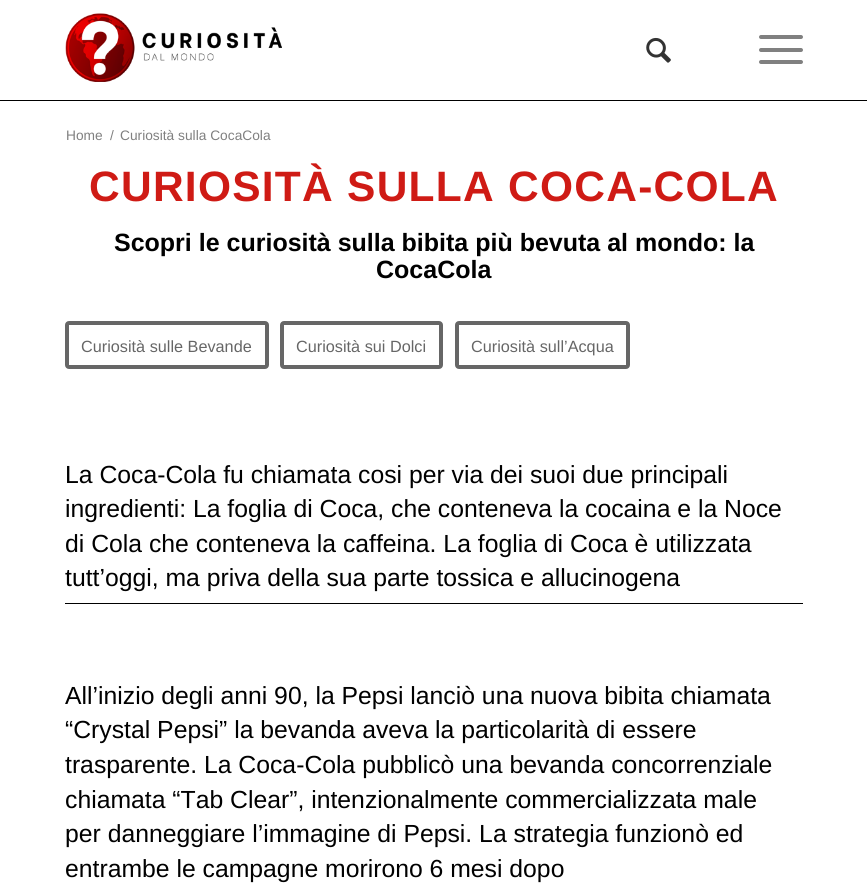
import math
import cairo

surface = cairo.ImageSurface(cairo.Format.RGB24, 867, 889)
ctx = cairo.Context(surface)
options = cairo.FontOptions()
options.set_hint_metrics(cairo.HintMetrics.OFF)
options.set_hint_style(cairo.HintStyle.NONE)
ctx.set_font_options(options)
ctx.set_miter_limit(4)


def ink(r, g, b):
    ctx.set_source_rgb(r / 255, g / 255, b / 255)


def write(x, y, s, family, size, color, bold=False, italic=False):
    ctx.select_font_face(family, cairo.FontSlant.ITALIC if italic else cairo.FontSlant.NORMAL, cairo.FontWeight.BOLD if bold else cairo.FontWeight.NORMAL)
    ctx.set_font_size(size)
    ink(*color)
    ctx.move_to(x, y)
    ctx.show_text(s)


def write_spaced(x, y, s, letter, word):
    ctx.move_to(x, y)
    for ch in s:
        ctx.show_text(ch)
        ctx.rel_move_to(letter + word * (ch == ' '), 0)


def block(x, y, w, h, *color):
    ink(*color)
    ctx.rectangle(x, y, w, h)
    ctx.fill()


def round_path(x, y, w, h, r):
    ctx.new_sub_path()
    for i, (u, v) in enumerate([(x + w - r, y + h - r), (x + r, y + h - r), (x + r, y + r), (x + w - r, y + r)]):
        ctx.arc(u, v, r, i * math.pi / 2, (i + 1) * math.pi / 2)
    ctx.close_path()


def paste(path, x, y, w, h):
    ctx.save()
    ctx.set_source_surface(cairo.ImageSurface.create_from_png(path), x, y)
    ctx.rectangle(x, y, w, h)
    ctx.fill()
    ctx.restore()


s1 = dict(family="Liberation Sans", size=13.75, color=(128, 128, 128))
s2 = dict(family="Liberation Sans", size=25, color=(0, 0, 0), bold=True)
s3 = dict(family="Liberation Sans", size=16.25, color=(102, 102, 102))
s4 = dict(family="Liberation Sans", size=24.75, color=(0, 0, 0))

ink(255, 255, 255)
ctx.paint()
paste("pic1.png", 65, 13, 217, 69)
paste("pic2.png", 646, 37, 25, 26)
ink(128, 128, 128)
round_path(759, 48, 44, 4, 2)
ctx.fill()
round_path(759, 35, 44, 4, 2)
ctx.fill()
round_path(759, 60, 44, 4, 2)
ctx.fill()
write(66, 140, "Home", **s1)
write(110, 140, "/", **s1)
write(120, 140, "Curiosità sulla CocaCola", **s1)
block(0, 100, 867, 1, 0, 0, 0)
ctx.select_font_face("Liberation Sans", cairo.FontSlant.NORMAL, cairo.FontWeight.BOLD)
ctx.set_font_size(42.5)
ink(207, 27, 21)
write_spaced(89, 201, "CURIOSITÀ SULLA COCA-COLA", 1.25, 0)
write(114, 251, "Scopri le curiosità sulla bibita più bevuta al mondo: la", **s2)
write(376, 278, "CocaCola", **s2)
round_path(67, 323, 200, 44, 2)
ink(102, 102, 102)
ctx.set_line_width(4)
ctx.stroke()
write(81, 352, "Curiosità sulle Bevande", **s3)
round_path(282, 323, 159, 44, 2)
ctx.stroke()
write(296, 352, "Curiosità sui Dolci", **s3)
round_path(457, 323, 171, 44, 2)
ctx.stroke()
write(471, 352, "Curiosità sull’Acqua", **s3)
block(65, 603, 738, 1, 0, 0, 0)
write(65, 483, "La Coca-Cola fu chiamata cosi per via dei suoi due principali", **s4)
write(65, 517, "ingredienti: La foglia di Coca, che conteneva la cocaina e la Noce", **s4)
write(65, 552, "di Cola che conteneva la caffeina. La foglia di Coca è utilizzata", **s4)
write(65, 586, "tutt’oggi, ma priva della sua parte tossica e allucinogena", **s4)
write(65, 704, "All’inizio degli anni 90, la Pepsi lanciò una nuova bibita chiamata", **s4)
write(65, 738, "“Crystal Pepsi” la bevanda aveva la particolarità di essere", **s4)
write(65, 773, "trasparente. La Coca-Cola pubblicò una bevanda concorrenziale", **s4)
write(65, 808, "chiamata “Tab Clear”, intenzionalmente commercializzata male", **s4)
write(65, 842, "per danneggiare l’immagine di Pepsi. La strategia funzionò ed", **s4)
write(65, 877, "entrambe le campagne morirono 6 mesi dopo", **s4)
surface.write_to_png("screenshot.png")
